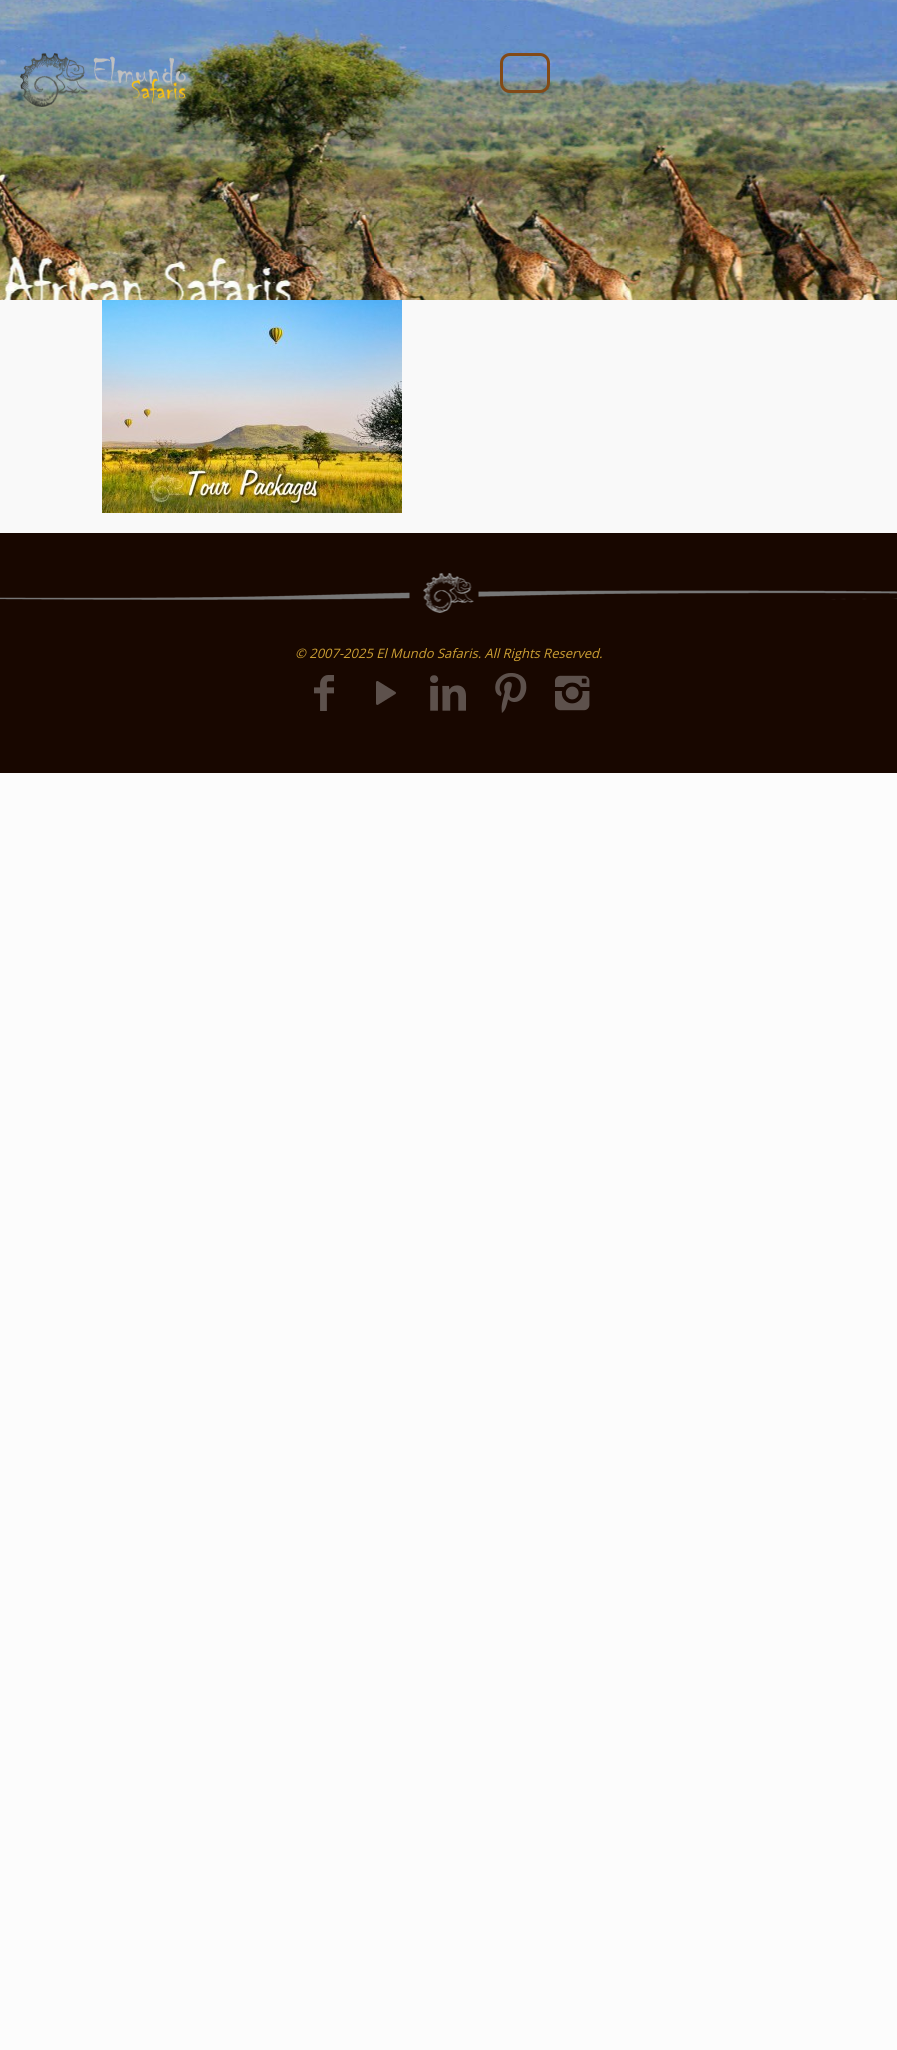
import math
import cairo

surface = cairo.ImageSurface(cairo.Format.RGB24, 897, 2050)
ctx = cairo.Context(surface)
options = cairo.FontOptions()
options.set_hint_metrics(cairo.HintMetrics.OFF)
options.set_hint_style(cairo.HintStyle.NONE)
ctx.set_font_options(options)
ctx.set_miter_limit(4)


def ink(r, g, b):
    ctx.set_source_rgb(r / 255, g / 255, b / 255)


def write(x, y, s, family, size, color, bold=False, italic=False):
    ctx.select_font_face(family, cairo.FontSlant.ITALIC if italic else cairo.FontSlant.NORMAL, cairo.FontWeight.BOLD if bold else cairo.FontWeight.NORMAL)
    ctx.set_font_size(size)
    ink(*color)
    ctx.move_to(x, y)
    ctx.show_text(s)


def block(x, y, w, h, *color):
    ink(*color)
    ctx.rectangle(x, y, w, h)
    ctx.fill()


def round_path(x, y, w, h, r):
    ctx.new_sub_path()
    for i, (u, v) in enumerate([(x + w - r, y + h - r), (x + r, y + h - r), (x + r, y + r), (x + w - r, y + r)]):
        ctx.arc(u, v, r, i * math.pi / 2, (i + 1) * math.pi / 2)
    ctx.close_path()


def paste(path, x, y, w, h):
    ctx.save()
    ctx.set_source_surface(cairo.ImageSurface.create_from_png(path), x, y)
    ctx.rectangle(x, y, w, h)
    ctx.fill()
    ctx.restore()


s1 = dict(family="Open Sans", size=13, color=(204, 159, 51), italic=True)

ink(252, 252, 252)
ctx.paint()
paste("pic1.png", 0, 0, 897, 300)
paste("pic2.png", 20, 53, 166, 54)
round_path(501.5, 54.5, 47, 37, 8.5)
ink(130, 74, 23)
ctx.set_line_width(3)
ctx.stroke()
block(0, 300, 897, 233, 249, 249, 249)
paste("pic3.png", 102, 300, 300, 213)
block(0, 533, 897, 240, 24, 7, 0)
paste("pic4.png", 0, 573, 897, 40)
write(295, 658, "© 2007-2025 El Mundo Safaris. All Rights Reserved.", **s1)
paste("pic5.png", 314, 675, 20, 36)
paste("pic6.png", 376, 681, 20, 24)
paste("pic7.png", 430, 675, 36, 36)
paste("pic8.png", 495, 673, 32, 40)
paste("pic9.png", 555, 675, 35, 36)
surface.write_to_png("screenshot.png")
